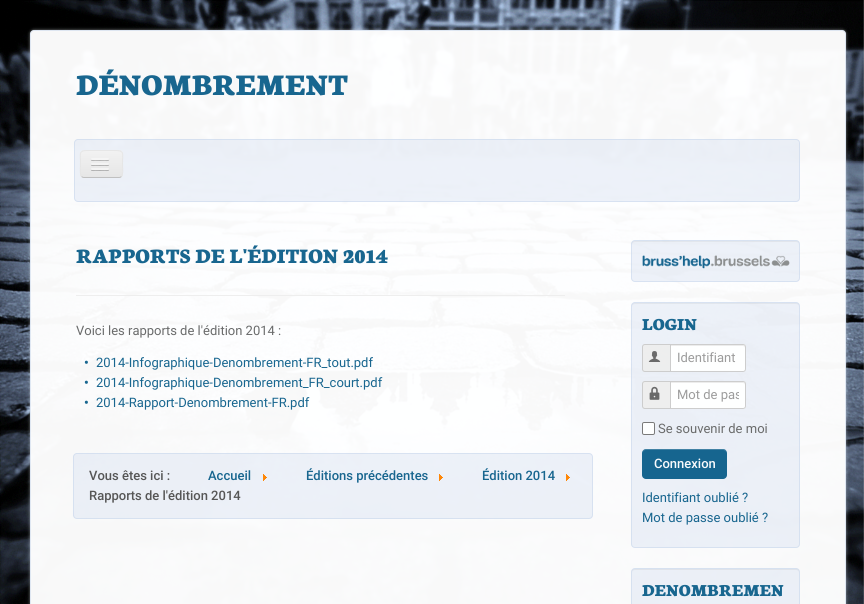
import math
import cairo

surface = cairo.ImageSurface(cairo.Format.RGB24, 864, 604)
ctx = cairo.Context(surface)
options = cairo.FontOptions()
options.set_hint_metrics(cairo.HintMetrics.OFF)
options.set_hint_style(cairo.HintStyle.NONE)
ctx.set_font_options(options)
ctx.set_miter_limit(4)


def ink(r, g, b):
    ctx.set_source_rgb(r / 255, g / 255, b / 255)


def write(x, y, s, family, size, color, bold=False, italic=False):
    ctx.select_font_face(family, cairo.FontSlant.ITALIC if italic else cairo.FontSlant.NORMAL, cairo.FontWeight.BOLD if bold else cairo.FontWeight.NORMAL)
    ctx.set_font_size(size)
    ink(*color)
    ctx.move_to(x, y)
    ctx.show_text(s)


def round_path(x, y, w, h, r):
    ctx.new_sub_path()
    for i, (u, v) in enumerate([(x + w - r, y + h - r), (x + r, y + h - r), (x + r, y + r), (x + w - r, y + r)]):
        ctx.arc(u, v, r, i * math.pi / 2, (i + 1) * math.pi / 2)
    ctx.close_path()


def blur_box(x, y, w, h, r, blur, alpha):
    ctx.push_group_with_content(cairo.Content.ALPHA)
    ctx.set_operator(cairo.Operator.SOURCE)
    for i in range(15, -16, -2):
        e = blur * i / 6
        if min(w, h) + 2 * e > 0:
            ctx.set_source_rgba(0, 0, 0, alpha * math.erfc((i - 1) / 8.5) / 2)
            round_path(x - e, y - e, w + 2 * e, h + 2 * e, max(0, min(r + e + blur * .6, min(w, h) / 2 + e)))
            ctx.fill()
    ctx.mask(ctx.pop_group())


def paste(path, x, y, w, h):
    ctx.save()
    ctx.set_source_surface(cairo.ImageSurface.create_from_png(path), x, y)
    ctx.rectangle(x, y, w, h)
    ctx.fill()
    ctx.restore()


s1 = dict(family="Neuton ExtraBold", size=32, color=(24, 102, 143))
s2 = dict(family="Neuton ExtraBold", size=22, color=(24, 102, 143))
s3 = dict(family="Roboto", size=13, color=(106, 107, 107))
s4 = dict(family="Roboto", size=13, color=(24, 102, 143), bold=True)
s5 = dict(family="Roboto", size=13, color=(24, 102, 143))
s6 = dict(family="Roboto Medium", size=13, color=(86, 86, 86))
s7 = dict(family="Roboto Medium", size=13, color=(24, 102, 143))
s8 = dict(family="Neuton ExtraBold", size=18, color=(24, 102, 143))
s9 = dict(family="Roboto", size=13, color=(156, 156, 156))
s10 = dict(family="Roboto Medium", size=13, color=(248, 250, 252))

ink(255, 255, 255)
ctx.paint()
paste("pic1.png", 0, 0, 864, 604)
ctx.save()
ctx.set_fill_rule(cairo.FillRule.EVEN_ODD)
ctx.new_path()
ctx.move_to(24, 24)
ctx.line_to(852, 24)
ctx.line_to(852, 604)
ctx.line_to(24, 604)
ctx.close_path()
ctx.move_to(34, 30)
ctx.line_to(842, 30)
ctx.curve_to(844, 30, 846, 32, 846, 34)
ctx.line_to(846, 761)
ctx.curve_to(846, 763, 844, 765, 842, 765)
ctx.line_to(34, 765)
ctx.curve_to(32, 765, 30, 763, 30, 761)
ctx.line_to(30, 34)
ctx.curve_to(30, 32, 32, 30, 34, 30)
ctx.close_path()
ctx.clip()
ink(234, 240, 244)
blur_box(30, 30, 816, 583, 4, 1.5, 0.5)
ctx.restore()
ctx.set_source_rgba(1, 1, 1, 0.97)
round_path(30, 30, 816, 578, 4)
ctx.fill()
round_path(30.5, 30.5, 815, 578, 3.5)
ctx.set_source_rgba(0.733, 0.8, 0.91, 0.42)
ctx.set_line_width(1)
ctx.stroke()
write(76, 95, "DÉNOMBREMENT", **s1)
ctx.set_source_rgba(0.843, 0.882, 0.945, 0.42)
round_path(74, 139, 726, 63, 4)
ctx.fill()
round_path(74.5, 139.5, 725, 62, 3.5)
ctx.set_source_rgba(0.733, 0.8, 0.91, 0.42)
ctx.stroke()
ink(237, 237, 237)
round_path(80, 150, 43, 28, 4)
ctx.fill()
ctx.save()
round_path(80, 150, 43, 28, 4)
ctx.clip()
gradient = cairo.LinearGradient(102, 151, 102, 177)
gradient.add_color_stop_rgba(0, 0.949, 0.949, 0.949, 0.97)
gradient.add_color_stop_rgba(1, 0.902, 0.902, 0.902, 0.97)
ctx.set_source(gradient)
ctx.rectangle(80, 151, 43, 26)
ctx.fill()
ctx.restore()
ctx.new_path()
ctx.move_to(121.5, 176.5)
ctx.curve_to(121, 177, 120, 177.5, 119, 177.5)
ctx.line_to(84, 177.5)
ctx.curve_to(83, 177.5, 82, 177, 81.5, 176.5)
ctx.set_source_rgba(0.749, 0.749, 0.749, 0.97)
ctx.stroke()
ctx.new_path()
ctx.move_to(81.5, 176.5)
ctx.curve_to(79.5, 174, 80.5, 166.5, 80.5, 164)
ctx.curve_to(80.5, 152, 78, 150.5, 90, 150.5)
ctx.line_to(113, 150.5)
ctx.curve_to(125, 150.5, 122.5, 152, 122.5, 164)
ctx.curve_to(122.5, 166.5, 123.5, 174, 121.5, 176.5)
ctx.set_source_rgba(0.902, 0.902, 0.902, 0.97)
ctx.stroke()
ink(180, 180, 180)
ctx.new_path()
ctx.move_to(91, 159.5)
ctx.curve_to(90, 161.5, 94.5, 161, 94.5, 161)
ctx.line_to(105.5, 161)
ctx.curve_to(105.5, 161, 110, 161.5, 109, 159.5)
ctx.curve_to(108, 160.5, 101.5, 160, 100, 160)
ctx.curve_to(98.5, 160, 92, 160.5, 91, 159.5)
ctx.close_path()
ctx.fill()
ctx.set_source_rgba(0.961, 0.961, 0.961, 0.97)
round_path(91, 158, 18, 2, 1)
ctx.fill()
ink(178, 178, 178)
ctx.new_path()
ctx.move_to(91, 164.5)
ctx.curve_to(90, 166.5, 94.5, 166, 94.5, 166)
ctx.line_to(105.5, 166)
ctx.curve_to(105.5, 166, 110, 166.5, 109, 164.5)
ctx.curve_to(108, 165.5, 101.5, 165, 100, 165)
ctx.curve_to(98.5, 165, 92, 165.5, 91, 164.5)
ctx.close_path()
ctx.fill()
ctx.set_source_rgba(0.961, 0.961, 0.961, 0.97)
round_path(91, 163, 18, 2, 1)
ctx.fill()
ink(177, 177, 177)
ctx.new_path()
ctx.move_to(91, 169.5)
ctx.curve_to(90, 171.5, 94.5, 171, 94.5, 171)
ctx.line_to(105.5, 171)
ctx.curve_to(105.5, 171, 110, 171.5, 109, 169.5)
ctx.curve_to(108, 170.5, 101.5, 170, 100, 170)
ctx.curve_to(98.5, 170, 92, 170.5, 91, 169.5)
ctx.close_path()
ctx.fill()
ctx.set_source_rgba(0.961, 0.961, 0.961, 0.97)
round_path(91, 168, 18, 2, 1)
ctx.fill()
ctx.set_source_rgba(0.933, 0.933, 0.933, 0.97)
ctx.rectangle(76, 295, 489, 1)
ctx.fill()
write(76, 263, "RAPPORTS DE L'ÉDITION 2014", **s2)
write(76, 335, "Voici les rapports de l'édition 2014 :", **s3)
write(84, 367, "•", **s4)
write(96, 367, "2014-Infographique-Denombrement-FR_tout.pdf", **s5)
write(84, 387, "•", **s4)
write(96, 387, "2014-Infographique-Denombrement_FR_court.pdf", **s5)
write(84, 407, "•", **s4)
write(96, 407, "2014-Rapport-Denombrement-FR.pdf", **s5)
ctx.set_source_rgba(0.843, 0.882, 0.945, 0.42)
round_path(73, 453, 520, 66, 4)
ctx.fill()
round_path(73.5, 453.5, 519, 65, 3.5)
ctx.set_source_rgba(0.733, 0.8, 0.91, 0.42)
ctx.stroke()
write(89, 480, "Vous êtes ici :", **s6)
write(208, 480, "Accueil", **s7)
paste("pic2.png", 263, 474, 4, 7)
write(306, 480, "Éditions précédentes", **s7)
paste("pic2.png", 439, 474, 4, 7)
write(482, 480, "Édition 2014", **s7)
paste("pic3.png", 566, 474, 4, 7)
write(89, 500, "Rapports de l'édition 2014", **s6)
ctx.set_source_rgba(0.843, 0.882, 0.945, 0.42)
round_path(631, 240, 169, 42, 4)
ctx.fill()
ctx.set_source_rgba(0, 0, 0, 0.05)
ctx.new_path()
ctx.move_to(635, 242)
ctx.line_to(796, 242)
ctx.curve_to(798, 242, 799, 243, 799, 245)
ctx.line_to(799, 244)
ctx.curve_to(799, 242, 798, 241, 796, 241)
ctx.line_to(635, 241)
ctx.curve_to(633, 241, 632, 242, 632, 244)
ctx.line_to(632, 245)
ctx.curve_to(632, 243, 633, 242, 635, 242)
ctx.close_path()
ctx.fill()
round_path(631.5, 240.5, 168, 41, 3.5)
ctx.set_source_rgba(0.733, 0.8, 0.91, 0.42)
ctx.stroke()
paste("pic4.png", 642, 255, 148, 14)
ctx.set_source_rgba(0.843, 0.882, 0.945, 0.42)
round_path(631, 302, 169, 246, 4)
ctx.fill()
ctx.set_source_rgba(0, 0, 0, 0.05)
ctx.new_path()
ctx.move_to(635, 304)
ctx.line_to(796, 304)
ctx.curve_to(798, 304, 799, 305, 799, 307)
ctx.line_to(799, 306)
ctx.curve_to(799, 304, 798, 303, 796, 303)
ctx.line_to(635, 303)
ctx.curve_to(633, 303, 632, 304, 632, 306)
ctx.line_to(632, 307)
ctx.curve_to(632, 305, 633, 304, 635, 304)
ctx.close_path()
ctx.fill()
round_path(631.5, 302.5, 168, 245, 3.5)
ctx.set_source_rgba(0.733, 0.8, 0.91, 0.42)
ctx.stroke()
write(642, 330, "LOGIN", **s8)
ctx.set_source_rgba(0.933, 0.933, 0.933, 0.97)
ctx.new_path()
ctx.move_to(645, 344)
ctx.line_to(671, 344)
ctx.line_to(671, 372)
ctx.line_to(645, 372)
ctx.curve_to(643.5, 372, 642, 370.5, 642, 369)
ctx.line_to(642, 347)
ctx.curve_to(642, 345.5, 643.5, 344, 645, 344)
ctx.close_path()
ctx.fill()
ctx.new_path()
ctx.move_to(645, 344.5)
ctx.line_to(670.5, 344.5)
ctx.line_to(670.5, 371.5)
ctx.line_to(645, 371.5)
ctx.curve_to(643.5, 371.5, 642.5, 370.5, 642.5, 369)
ctx.line_to(642.5, 347)
ctx.curve_to(642.5, 345.5, 643.5, 344.5, 645, 344.5)
ctx.close_path()
ctx.set_source_rgba(0.8, 0.8, 0.8, 0.97)
ctx.stroke()
paste("pic5.png", 648, 351, 13, 11)
ctx.set_source_rgba(1, 1, 1, 0.97)
ctx.new_path()
ctx.move_to(670, 344)
ctx.line_to(743, 344)
ctx.curve_to(744.5, 344, 746, 345.5, 746, 347)
ctx.line_to(746, 369)
ctx.curve_to(746, 370.5, 744.5, 372, 743, 372)
ctx.line_to(670, 372)
ctx.close_path()
ctx.fill()
ink(236, 236, 236)
ctx.new_path()
ctx.move_to(671, 346)
ctx.line_to(743, 346)
ctx.curve_to(744, 346, 745, 347, 745, 348)
ctx.line_to(745, 347)
ctx.curve_to(745, 346, 744, 345, 743, 345)
ctx.line_to(671, 345)
ctx.close_path()
ctx.fill()
ctx.new_path()
ctx.move_to(670.5, 344.5)
ctx.line_to(743, 344.5)
ctx.curve_to(744.5, 344.5, 745.5, 345.5, 745.5, 347)
ctx.line_to(745.5, 369)
ctx.curve_to(745.5, 370.5, 744.5, 371.5, 743, 371.5)
ctx.line_to(670.5, 371.5)
ctx.close_path()
ctx.set_source_rgba(0.8, 0.8, 0.8, 0.97)
ctx.stroke()
write(677, 362, "Identifiant", **s9)
ink(238, 238, 238)
ctx.new_path()
ctx.move_to(645, 381)
ctx.line_to(671, 381)
ctx.line_to(671, 409)
ctx.line_to(645, 409)
ctx.curve_to(643.5, 409, 642, 407.5, 642, 406)
ctx.line_to(642, 384)
ctx.curve_to(642, 382.5, 643.5, 381, 645, 381)
ctx.close_path()
ctx.fill()
ctx.new_path()
ctx.move_to(645, 381.5)
ctx.line_to(670.5, 381.5)
ctx.line_to(670.5, 408.5)
ctx.line_to(645, 408.5)
ctx.curve_to(643.5, 408.5, 642.5, 407.5, 642.5, 406)
ctx.line_to(642.5, 384)
ctx.curve_to(642.5, 382.5, 643.5, 381.5, 645, 381.5)
ctx.close_path()
ctx.set_source_rgba(0.8, 0.8, 0.8, 0.97)
ctx.stroke()
paste("pic6.png", 649, 386, 11, 14)
ctx.set_source_rgba(1, 1, 1, 0.97)
ctx.new_path()
ctx.move_to(670, 381)
ctx.line_to(743, 381)
ctx.curve_to(744.5, 381, 746, 382.5, 746, 384)
ctx.line_to(746, 406)
ctx.curve_to(746, 407.5, 744.5, 409, 743, 409)
ctx.line_to(670, 409)
ctx.close_path()
ctx.fill()
ink(236, 236, 236)
ctx.new_path()
ctx.move_to(671, 383)
ctx.line_to(743, 383)
ctx.curve_to(744, 383, 745, 384, 745, 385)
ctx.line_to(745, 384)
ctx.curve_to(745, 383, 744, 382, 743, 382)
ctx.line_to(671, 382)
ctx.close_path()
ctx.fill()
ctx.new_path()
ctx.move_to(670.5, 381.5)
ctx.line_to(743, 381.5)
ctx.curve_to(744.5, 381.5, 745.5, 382.5, 745.5, 384)
ctx.line_to(745.5, 406)
ctx.curve_to(745.5, 407.5, 744.5, 408.5, 743, 408.5)
ctx.line_to(670.5, 408.5)
ctx.close_path()
ctx.set_source_rgba(0.8, 0.8, 0.8, 0.97)
ctx.stroke()
ctx.save()
ctx.rectangle(677, 387, 62, 15)
ctx.clip()
write(677, 399, "Mot de pas", **s9)
ctx.restore()
ctx.set_source_rgba(1, 1, 1, 0.97)
round_path(642.5, 422.5, 12, 12, 1.5)
ctx.fill_preserve()
ink(122, 122, 122)
ctx.stroke()
write(658, 433, "Se souvenir de moi", **s3)
ctx.set_source_rgba(0.067, 0.38, 0.549, 0.97)
round_path(642, 449, 85, 30, 4)
ctx.fill()
ctx.set_source_rgba(1, 1, 1, 0.19)
ctx.new_path()
ctx.move_to(646, 450)
ctx.line_to(723, 450)
ctx.curve_to(725, 450, 727, 452, 727, 454)
ctx.curve_to(727, 446, 715, 449, 710, 449)
ctx.line_to(659, 449)
ctx.curve_to(654, 449, 642, 446, 642, 454)
ctx.curve_to(642, 452, 644, 450, 646, 450)
ctx.close_path()
ctx.fill()
write(654, 468, "Connexion", **s10)
write(642, 502, "Identifiant oublié ?", **s5)
write(642, 522, "Mot de passe oublié ?", **s5)
ctx.set_source_rgba(0.843, 0.882, 0.945, 0.42)
round_path(631, 568, 169, 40, 4)
ctx.fill()
ink(223, 227, 234)
ctx.new_path()
ctx.move_to(635, 570)
ctx.line_to(796, 570)
ctx.curve_to(798, 570, 799, 571, 799, 573)
ctx.line_to(799, 572)
ctx.curve_to(799, 570, 798, 569, 796, 569)
ctx.line_to(635, 569)
ctx.curve_to(633, 569, 632, 570, 632, 572)
ctx.line_to(632, 573)
ctx.curve_to(632, 571, 633, 570, 635, 570)
ctx.close_path()
ctx.fill()
round_path(631.5, 568.5, 168, 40, 3.5)
ctx.set_source_rgba(0.733, 0.8, 0.91, 0.42)
ctx.stroke()
write(642, 596, "DENOMBREMEN", **s8)
surface.write_to_png("screenshot.png")
